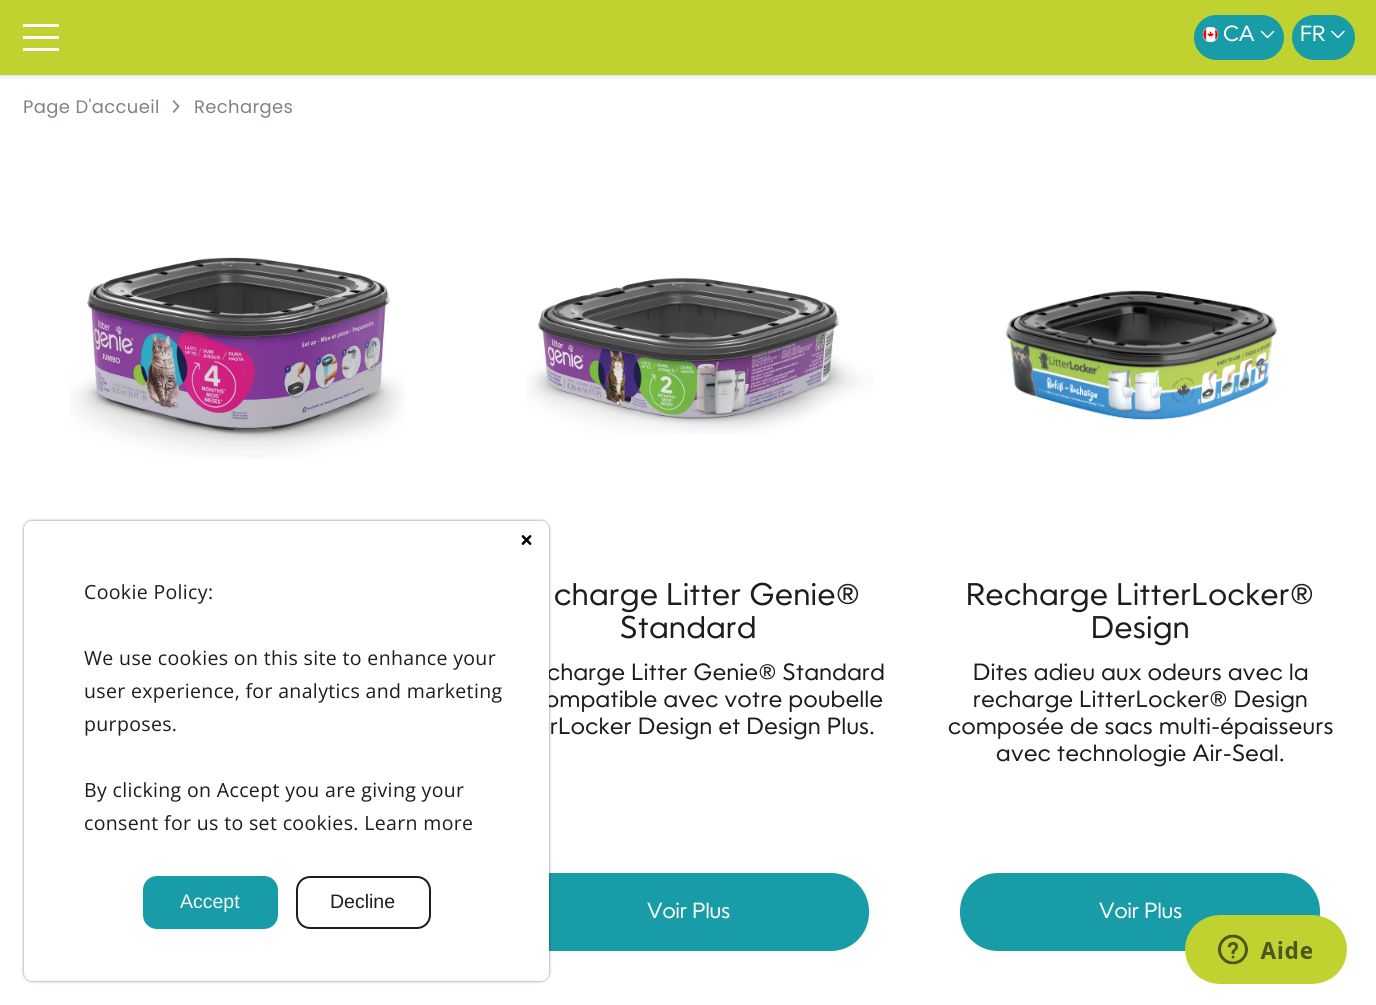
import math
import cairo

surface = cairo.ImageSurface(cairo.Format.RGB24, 1376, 1005)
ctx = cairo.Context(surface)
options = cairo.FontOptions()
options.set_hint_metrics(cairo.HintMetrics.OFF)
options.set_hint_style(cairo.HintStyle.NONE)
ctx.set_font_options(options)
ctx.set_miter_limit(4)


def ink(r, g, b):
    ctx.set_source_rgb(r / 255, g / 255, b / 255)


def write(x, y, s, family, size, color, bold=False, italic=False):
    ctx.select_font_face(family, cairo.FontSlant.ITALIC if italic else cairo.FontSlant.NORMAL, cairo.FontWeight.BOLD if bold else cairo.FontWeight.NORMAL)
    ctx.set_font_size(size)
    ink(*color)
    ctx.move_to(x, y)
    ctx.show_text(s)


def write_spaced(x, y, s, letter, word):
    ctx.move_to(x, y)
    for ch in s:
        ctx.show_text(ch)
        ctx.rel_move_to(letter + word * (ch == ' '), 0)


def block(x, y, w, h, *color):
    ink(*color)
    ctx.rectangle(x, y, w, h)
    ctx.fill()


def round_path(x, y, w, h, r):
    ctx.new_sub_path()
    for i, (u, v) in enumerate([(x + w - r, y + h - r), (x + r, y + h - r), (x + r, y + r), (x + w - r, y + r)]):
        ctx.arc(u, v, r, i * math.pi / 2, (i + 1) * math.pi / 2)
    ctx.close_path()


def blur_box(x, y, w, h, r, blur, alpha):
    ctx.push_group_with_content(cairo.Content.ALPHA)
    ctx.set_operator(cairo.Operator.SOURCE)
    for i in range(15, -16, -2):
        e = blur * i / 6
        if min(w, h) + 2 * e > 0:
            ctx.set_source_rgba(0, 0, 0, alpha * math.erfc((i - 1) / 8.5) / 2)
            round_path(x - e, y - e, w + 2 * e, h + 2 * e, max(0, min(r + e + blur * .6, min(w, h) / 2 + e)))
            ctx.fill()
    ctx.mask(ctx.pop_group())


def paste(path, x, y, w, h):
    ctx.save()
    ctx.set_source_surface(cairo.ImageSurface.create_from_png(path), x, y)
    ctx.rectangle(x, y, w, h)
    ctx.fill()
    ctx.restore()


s1 = dict(family="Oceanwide", size=21, color=(255, 255, 255))
s2 = dict(family="Liberation Sans", size=19.5, color=(248, 248, 248))
s3 = dict(family="Liberation Sans", size=19.5, color=(29, 29, 27))

ink(255, 255, 255)
ctx.paint()
ink(0, 0, 0)
blur_box(0, 2, 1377, 75, 0, 2, 0.1)
block(0, 0, 1376, 75, 191, 210, 48)
block(23, 36, 36, 3, 255, 255, 255)
block(23, 24, 36, 3, 255, 255, 255)
block(23, 48, 36, 3, 255, 255, 255)
ink(24, 156, 168)
round_path(1194, 15, 90, 45, 22.5)
ctx.fill()
paste("pic1.png", 1203, 27, 15, 15)
write(1223, 41, "CA", **s1)
paste("pic2.png", 1260, 30, 15, 9)
ink(24, 156, 168)
round_path(1292, 15, 63, 45, 22.5)
ctx.fill()
write(1300, 41, "FR", **s1)
paste("pic3.png", 1331, 30, 14, 9)
ctx.select_font_face("Poppins")
ctx.set_font_size(18)
ink(137, 128, 125)
write_spaced(23, 113, "Page D'accueil", 0.35, 0)
paste("pic4.png", 172, 100, 8, 13)
write_spaced(194, 113, "Recharges", 0.35, 0)
paste("pic5.png", 69, 257, 336, 202)
paste("pic6.png", 526, 277, 348, 158)
ctx.select_font_face("Oceanwide")
ctx.set_font_size(30)
ink(29, 29, 27)
write_spaced(554, 605, "charge Litter Genie®", 0.6, 0)
write_spaced(620, 638, "Standard", 0.6, 0)
ctx.set_font_size(22.5)
write_spaced(547, 680, "charge Litter Genie® Standard", 0.45, 0)
write_spaced(545, 707, "ompatible avec votre poubelle", 0.45, 0)
write_spaced(550, 734, "rLocker Design et Design Plus.", 0.45, 0)
ink(24, 156, 168)
round_path(509, 873, 360, 78, 38)
ctx.fill()
write(647, 918, "Voir Plus", **s1)
paste("pic7.png", 1005, 290, 273, 130)
ctx.set_font_size(30)
ink(29, 29, 27)
write_spaced(966, 605, "Recharge LitterLocker®", 0.6, 0)
write_spaced(1091, 638, "Design", 0.6, 0)
ctx.set_font_size(22.5)
write_spaced(973, 680, "Dites adieu aux odeurs avec la", 0.45, 0)
write_spaced(973, 707, "recharge LitterLocker® Design", 0.45, 0)
write_spaced(948, 734, "composée de sacs multi-épaisseurs", 0.45, 0)
write_spaced(996, 761, "avec technologie Air-Seal.", 0.45, 0)
ink(24, 156, 168)
round_path(960, 873, 360, 78, 38)
ctx.fill()
write(1099, 918, "Voir Plus", **s1)
ink(0, 0, 0)
blur_box(24, 521, 525, 460, 8, 1.5, 0.5)
ink(255, 255, 255)
round_path(24, 521, 525, 460, 8)
ctx.fill()
paste("pic8.png", 521, 535, 11, 10)
ctx.select_font_face("Open Sans")
ctx.set_font_size(19.5)
ink(29, 29, 27)
write_spaced(84, 599, "Cookie Policy:", 0.35, 0)
write_spaced(84, 665, "We use cookies on this site to enhance your", 0.35, 0)
write_spaced(84, 698, "user experience, for analytics and marketing", 0.35, 0)
write_spaced(84, 731, "purposes.", 0.35, 0)
write_spaced(84, 797, "By clicking on Accept you are giving your", 0.35, 0)
write_spaced(84, 830, "consent for us to set cookies. Learn more", 0.35, 0)
ink(24, 156, 168)
round_path(143, 876, 135, 53, 14)
ctx.fill()
write(180, 908, "Accept", **s2)
round_path(297, 877, 133, 51, 13)
ink(29, 29, 27)
ctx.stroke()
write(330, 908, "Decline", **s3)
paste("pic9.png", 1185, 915, 162, 69)
surface.write_to_png("screenshot.png")
